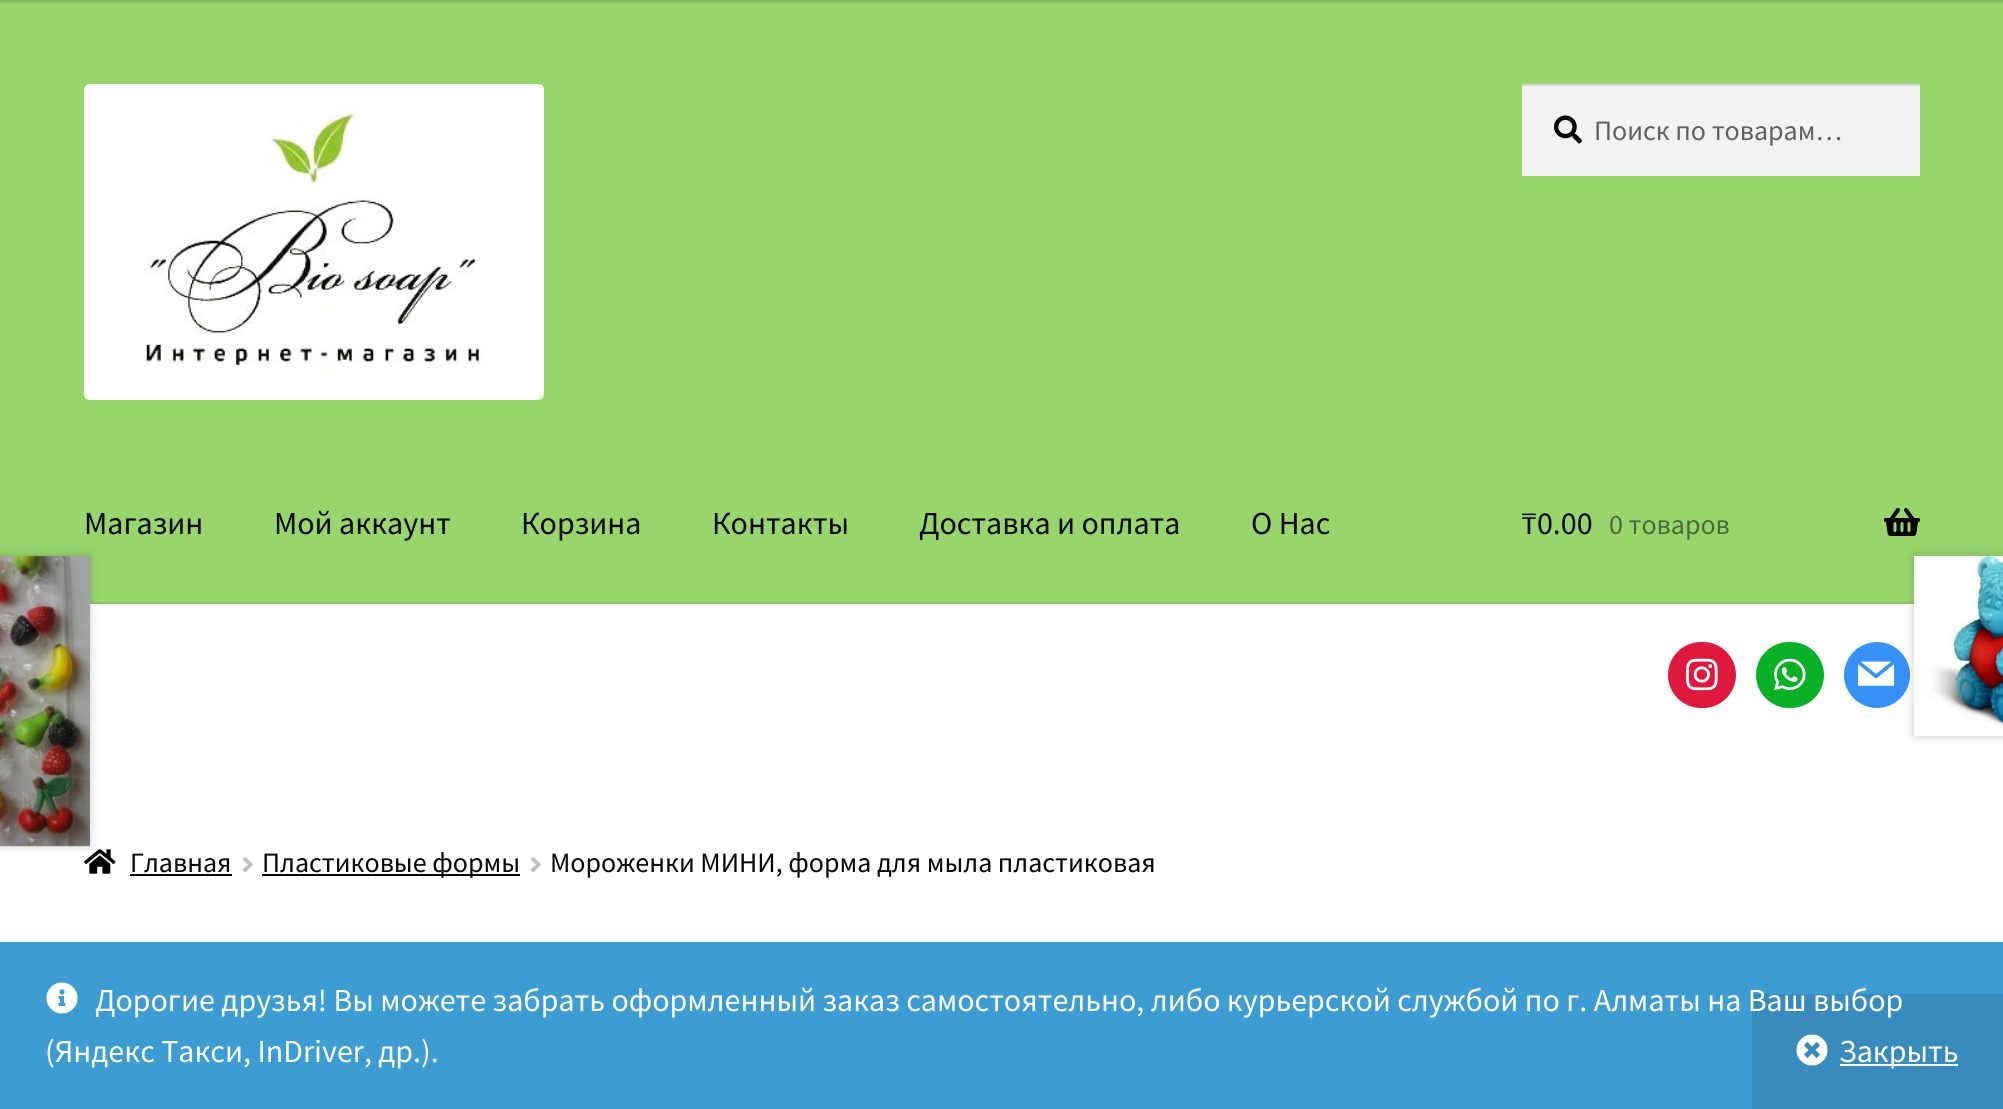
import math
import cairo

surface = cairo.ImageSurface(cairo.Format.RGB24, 2003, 1109)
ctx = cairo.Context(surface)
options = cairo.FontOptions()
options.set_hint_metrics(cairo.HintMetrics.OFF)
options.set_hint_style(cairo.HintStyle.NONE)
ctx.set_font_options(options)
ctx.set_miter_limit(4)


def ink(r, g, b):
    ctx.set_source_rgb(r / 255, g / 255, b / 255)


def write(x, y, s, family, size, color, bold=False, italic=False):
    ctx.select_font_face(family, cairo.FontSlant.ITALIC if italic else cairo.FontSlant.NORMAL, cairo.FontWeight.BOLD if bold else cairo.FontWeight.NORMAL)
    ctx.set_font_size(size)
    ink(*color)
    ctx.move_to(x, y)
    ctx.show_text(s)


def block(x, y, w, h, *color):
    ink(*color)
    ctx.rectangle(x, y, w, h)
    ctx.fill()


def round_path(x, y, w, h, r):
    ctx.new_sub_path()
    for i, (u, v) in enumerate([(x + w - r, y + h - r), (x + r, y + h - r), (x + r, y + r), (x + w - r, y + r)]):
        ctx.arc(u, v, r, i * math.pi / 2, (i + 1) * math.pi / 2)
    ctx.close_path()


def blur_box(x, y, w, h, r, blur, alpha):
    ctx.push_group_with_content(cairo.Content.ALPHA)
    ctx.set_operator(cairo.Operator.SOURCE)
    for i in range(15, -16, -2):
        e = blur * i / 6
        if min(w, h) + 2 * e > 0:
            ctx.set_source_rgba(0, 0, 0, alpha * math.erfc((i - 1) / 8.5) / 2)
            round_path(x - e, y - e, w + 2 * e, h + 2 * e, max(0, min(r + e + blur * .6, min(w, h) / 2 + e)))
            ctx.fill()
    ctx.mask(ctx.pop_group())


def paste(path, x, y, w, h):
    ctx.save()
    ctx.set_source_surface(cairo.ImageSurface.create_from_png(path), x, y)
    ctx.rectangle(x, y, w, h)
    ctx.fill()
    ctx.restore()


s1 = dict(family="Source Sans Pro", size=28, color=(97, 97, 97))
s2 = dict(family="Source Sans Pro", size=32, color=(5, 5, 5))
s3 = dict(family="Source Sans Pro", size=28, color=(76, 107, 55))
s4 = dict(family="Source Sans Pro", size=28, color=(5, 5, 5))
s5 = dict(family="Source Sans Pro", size=32, color=(255, 255, 255))

ink(255, 255, 255)
ctx.paint()
block(0, 0, 2003, 602, 152, 214, 109)
ink(0, 0, 0)
blur_box(0, -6, 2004, 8, 0, 2, 0.2)
block(90, 602, 1824, 2, 137, 199, 94)
paste("pic1.png", 84, 84, 460, 316)
block(1522, 86, 398, 90, 242, 242, 242)
paste("pic2.png", 1554, 115, 28, 29)
block(1522, 84, 398, 2, 212, 212, 212)
write(1594, 140, "Поиск по товарам…", **s1)
write(84, 534, "Магазин", **s2)
write(274, 534, "Мой аккаунт", **s2)
write(521, 534, "Корзина", **s2)
write(712, 534, "Контакты", **s2)
write(919, 534, "Доставка и оплата", **s2)
write(1251, 534, "О Нас", **s2)
write(1521, 534, "₸0.00", **s2)
write(1609, 534, "0 товаров", **s3)
paste("pic3.png", 1884, 508, 36, 28)
paste("pic9.png", 84, 849, 32, 25)
ink(0, 0, 0)
blur_box(-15, 556, 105, 290, 0, 5, 0.2)
paste("pic4.png", 0, 555, 90, 292)
ink(56, 145, 246)
ctx.arc(1877, 675, 33, 0, 2 * math.pi)
ctx.fill()
ink(0, 0, 0)
blur_box(1914, 556, 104, 180, 0, 5, 0.2)
block(1914, 726, 89, 10, 255, 255, 255)
paste("pic5.png", 1914, 555, 89, 171)
ink(222, 25, 61)
round_path(1668, 642, 68, 66, 33)
ctx.fill()
paste("pic6.png", 1686, 658, 32, 33)
ink(10, 177, 38)
round_path(1756, 642, 68, 66, 33)
ctx.fill()
paste("pic7.png", 1774, 658, 32, 33)
paste("pic8.png", 1858, 661, 37, 25)
write(130, 872, "Главная", **s4)
block(130, 874, 102, 2, 5, 5, 5)
paste("pic10.png", 243, 857, 10, 16)
block(262, 874, 258, 2, 5, 5, 5)
write(262, 872, "Пластиковые формы", **s4)
paste("pic10.png", 531, 857, 10, 16)
write(550, 872, "Мороженки МИНИ, форма для мыла пластиковая", **s4)
block(0, 942, 2003, 167, 61, 156, 210)
paste("pic11.png", 46, 982, 32, 32)
block(1752, 994, 251, 115, 55, 140, 189)
write(95, 1011, "Дорогие друзья! Вы можете забрать оформленный заказ самостоятельно, либо курьерской службой по г. Алматы на Ваш выбор", **s5)
write(45, 1062, "(Яндекс Такси, InDriver, др.).", **s5)
paste("pic12.png", 1796, 1034, 32, 32)
block(1840, 1064, 118, 2, 255, 255, 255)
write(1839, 1062, "Закрыть", **s5)
surface.write_to_png("screenshot.png")
